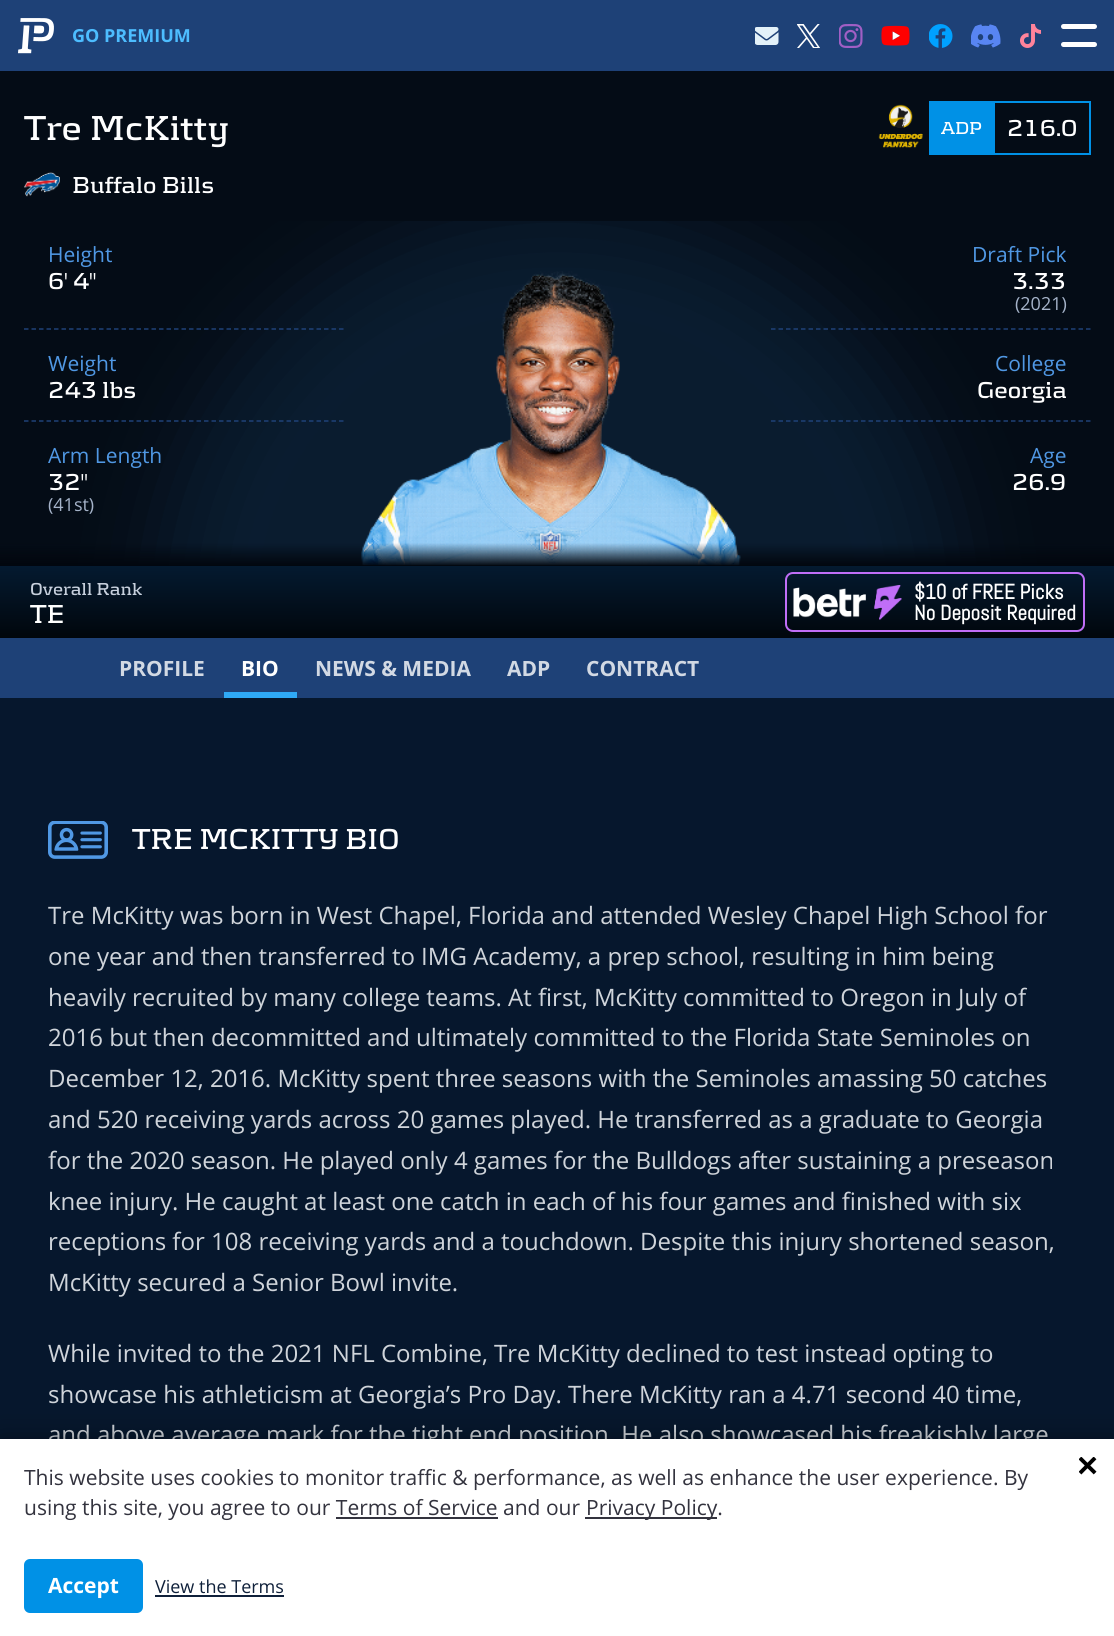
import math
import cairo

surface = cairo.ImageSurface(cairo.Format.RGB24, 1114, 1636)
ctx = cairo.Context(surface)
options = cairo.FontOptions()
options.set_hint_metrics(cairo.HintMetrics.OFF)
options.set_hint_style(cairo.HintStyle.NONE)
ctx.set_font_options(options)
ctx.set_miter_limit(4)


def ink(r, g, b):
    ctx.set_source_rgb(r / 255, g / 255, b / 255)


def write(x, y, s, family, size, color, bold=False, italic=False):
    ctx.select_font_face(family, cairo.FontSlant.ITALIC if italic else cairo.FontSlant.NORMAL, cairo.FontWeight.BOLD if bold else cairo.FontWeight.NORMAL)
    ctx.set_font_size(size)
    ink(*color)
    ctx.move_to(x, y)
    ctx.show_text(s)


def block(x, y, w, h, *color):
    ink(*color)
    ctx.rectangle(x, y, w, h)
    ctx.fill()


def round_path(x, y, w, h, r):
    ctx.new_sub_path()
    for i, (u, v) in enumerate([(x + w - r, y + h - r), (x + r, y + h - r), (x + r, y + r), (x + w - r, y + r)]):
        ctx.arc(u, v, r, i * math.pi / 2, (i + 1) * math.pi / 2)
    ctx.close_path()


def blur_box(x, y, w, h, r, blur, alpha):
    ctx.push_group_with_content(cairo.Content.ALPHA)
    ctx.set_operator(cairo.Operator.SOURCE)
    for i in range(15, -16, -2):
        e = blur * i / 6
        if min(w, h) + 2 * e > 0:
            ctx.set_source_rgba(0, 0, 0, alpha * math.erfc((i - 1) / 8.5) / 2)
            round_path(x - e, y - e, w + 2 * e, h + 2 * e, max(0, min(r + e + blur * .6, min(w, h) / 2 + e)))
            ctx.fill()
    ctx.mask(ctx.pop_group())


def paste(path, x, y, w, h):
    ctx.save()
    ctx.set_source_surface(cairo.ImageSurface.create_from_png(path), x, y)
    ctx.rectangle(x, y, w, h)
    ctx.fill()
    ctx.restore()


s1 = dict(family="Open Sans", size=18, color=(77, 189, 255), bold=True)
s2 = dict(family="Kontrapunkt", size=36, color=(255, 255, 255), bold=True)
s3 = dict(family="Kontrapunkt", size=18, color=(255, 255, 255), bold=True)
s4 = dict(family="Kontrapunkt", size=24, color=(255, 255, 255), bold=True)
s5 = dict(family="Kontrapunkt", size=18, color=(199, 208, 221), bold=True)
s6 = dict(family="Kontrapunkt", size=27, color=(255, 255, 255), bold=True)
s7 = dict(family="Open Sans", size=21, color=(80, 152, 228))
s8 = dict(family="Open Sans", size=18, color=(165, 179, 201))
s9 = dict(family="Abel", size=21, color=(255, 255, 255), bold=True)
s10 = dict(family="Open Sans", size=21, color=(210, 217, 228), bold=True)
s11 = dict(family="Open Sans", size=21, color=(255, 255, 255), bold=True)
s12 = dict(family="Kontrapunkt", size=30, color=(255, 255, 255), bold=True)
s13 = dict(family="Open Sans", size=24, color=(207, 212, 218))
s14 = dict(family="Open Sans", size=21, color=(51, 51, 62))
s15 = dict(family="Open Sans", size=18, color=(15, 32, 58))

ink(6, 23, 45)
ctx.paint()
block(0, 0, 1114, 71, 30, 65, 119)
paste("pic1.png", 18, 18, 36, 36)
write(72, 42, "GO PREMIUM", **s1)
paste("pic2.png", 755, 27, 24, 18)
paste("pic3.png", 797, 24, 23, 24)
paste("pic4.png", 839, 24, 24, 24)
paste("pic5.png", 881, 25, 29, 21)
paste("pic6.png", 929, 24, 24, 24)
paste("pic7.png", 971, 24, 30, 24)
paste("pic8.png", 1020, 24, 22, 24)
ink(255, 255, 255)
round_path(1061, 24, 36, 5, 2.5)
ctx.fill()
round_path(1061, 42, 36, 5, 2.5)
ctx.fill()
block(0, 71, 1114, 495, 4, 12, 22)
write(24, 140, "Tre McKitty", **s2)
paste("pic9.png", 878, 104, 45, 44)
ctx.rectangle(930, 102, 160, 52)
ink(0, 145, 230)
ctx.stroke()
block(931, 103, 64, 50, 0, 145, 230)
write(941, 134, "ADP", **s3)
write(1007, 136, "216.0", **s4)
paste("pic10.png", 24, 172, 36, 25)
write(72, 193, "Buffalo Bills", **s4)
paste("pic13.png", 48, 821, 60, 38)
ctx.save()
ctx.rectangle(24, 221, 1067, 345)
ctx.clip()
ink(24, 67, 109)
blur_box(158, 215, 799, 799, 399.5, 45, 0.3)
ctx.restore()
gradient = cairo.LinearGradient(557, 638, 557, 566)
gradient.add_color_stop_rgba(0, 0.004, 0.024, 0.047, 1)
gradient.add_color_stop_rgba(1, 0.016, 0.102, 0.188, 1)
ctx.set_source(gradient)
ctx.rectangle(0, 566, 1114, 72)
ctx.fill()
write(30, 595, "Overall Rank", **s5)
write(30, 623, "TE", **s6)
ctx.new_path()
ctx.move_to(24, 329)
ctx.line_to(343.5, 329)
ink(30, 65, 119)
ctx.set_line_width(1.5)
ctx.set_dash([4.5, 3])
ctx.stroke()
write(48, 262, "Height", **s7)
write(48, 289, "6' 4\"", **s4)
ctx.new_path()
ctx.move_to(771, 329)
ctx.line_to(1090.5, 329)
ink(30, 65, 119)
ctx.stroke()
write(972, 262, "Draft Pick", **s7)
write(1012, 289, "3.33", **s4)
write(1015, 310, "(2021)", **s8)
ctx.new_path()
ctx.move_to(24, 421)
ctx.line_to(343.5, 421)
ink(30, 65, 119)
ctx.stroke()
write(48, 371, "Weight", **s7)
write(48, 398, "243 lbs", **s4)
ctx.new_path()
ctx.move_to(771, 421)
ctx.line_to(1090.5, 421)
ink(30, 65, 119)
ctx.stroke()
write(995, 371, "College", **s7)
write(977, 398, "Georgia", **s4)
write(48, 463, "Arm Length", **s7)
write(48, 490, "32\"", **s4)
write(48, 511, "(41st)", **s8)
write(1030, 463, "Age", **s7)
write(1012, 490, "26.9", **s4)
paste("pic11.png", 361, 271, 380, 295)
round_path(786, 573, 298, 58, 7)
ink(192, 110, 247)
ctx.set_line_width(2)
ctx.set_dash([])
ctx.stroke()
paste("pic12.png", 793, 585, 109, 35)
write(914, 599, "$10 of FREE Picks", **s9)
write(914, 620, "No Deposit Required", **s9)
gradient = cairo.LinearGradient(557, 566, 557, 543)
gradient.add_color_stop_rgba(0, 0.004, 0.024, 0.055, 1)
gradient.add_color_stop_rgba(1, 0.004, 0.024, 0.055, 0)
ctx.set_source(gradient)
ctx.rectangle(0, 543, 1114, 23)
ctx.fill()
block(0, 638, 1114, 60, 30, 65, 119)
write(119, 676, "PROFILE", **s10)
write(241, 676, "BIO", **s11)
block(224, 692, 73, 6, 47, 170, 247)
write(315, 676, "NEWS & MEDIA", **s10)
write(507, 676, "ADP", **s10)
write(586, 676, "CONTRACT", **s10)
write(132, 849, "TRE MCKITTY BIO", **s12)
write(48, 924, "Tre McKitty was born in West Chapel, Florida and attended Wesley Chapel High School for", **s13)
write(48, 965, "one year and then transferred to IMG Academy, a prep school, resulting in him being", **s13)
write(48, 1006, "heavily recruited by many college teams. At first, McKitty committed to Oregon in July of", **s13)
write(48, 1046, "2016 but then decommitted and ultimately committed to the Florida State Seminoles on", **s13)
write(48, 1087, "December 12, 2016. McKitty spent three seasons with the Seminoles amassing 50 catches", **s13)
write(48, 1128, "and 520 receiving yards across 20 games played. He transferred as a graduate to Georgia", **s13)
write(48, 1169, "for the 2020 season. He played only 4 games for the Bulldogs after sustaining a preseason", **s13)
write(48, 1210, "knee injury. He caught at least one catch in each of his four games and finished with six", **s13)
write(48, 1250, "receptions for 108 receiving yards and a touchdown. Despite this injury shortened season,", **s13)
write(48, 1291, "McKitty secured a Senior Bowl invite.", **s13)
write(48, 1362, "While invited to the 2021 NFL Combine, Tre McKitty declined to test instead opting to", **s13)
write(48, 1403, "showcase his athleticism at Georgia’s Pro Day. There McKitty ran a 4.71 second 40 time,", **s13)
write(48, 1443, "and above average mark for the tight end position. He also showcased his freakishly large", **s13)
ink(0, 0, 0)
blur_box(0, 1439, 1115, 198, 0, 13.5, 0.4)
block(0, 1439, 1114, 197, 255, 255, 255)
write(24, 1485, "This website uses cookies to monitor traffic & performance, as well as enhance the user experience. By", **s14)
write(24, 1515, "using this site, you agree to our Terms of Service and our", **s14)
block(585, 1517, 132, 2, 51, 51, 62)
write(586, 1515, "Privacy Policy.", **s14)
block(336, 1517, 162, 2, 51, 51, 62)
paste("pic14.png", 1079, 1457, 18, 18)
ink(0, 145, 230)
round_path(24, 1559, 119, 54, 6)
ctx.fill()
write(48, 1593, "Accept", **s11)
write(155, 1593, "View the Terms", **s15)
block(155, 1595, 129, 2, 15, 32, 58)
surface.write_to_png("screenshot.png")
